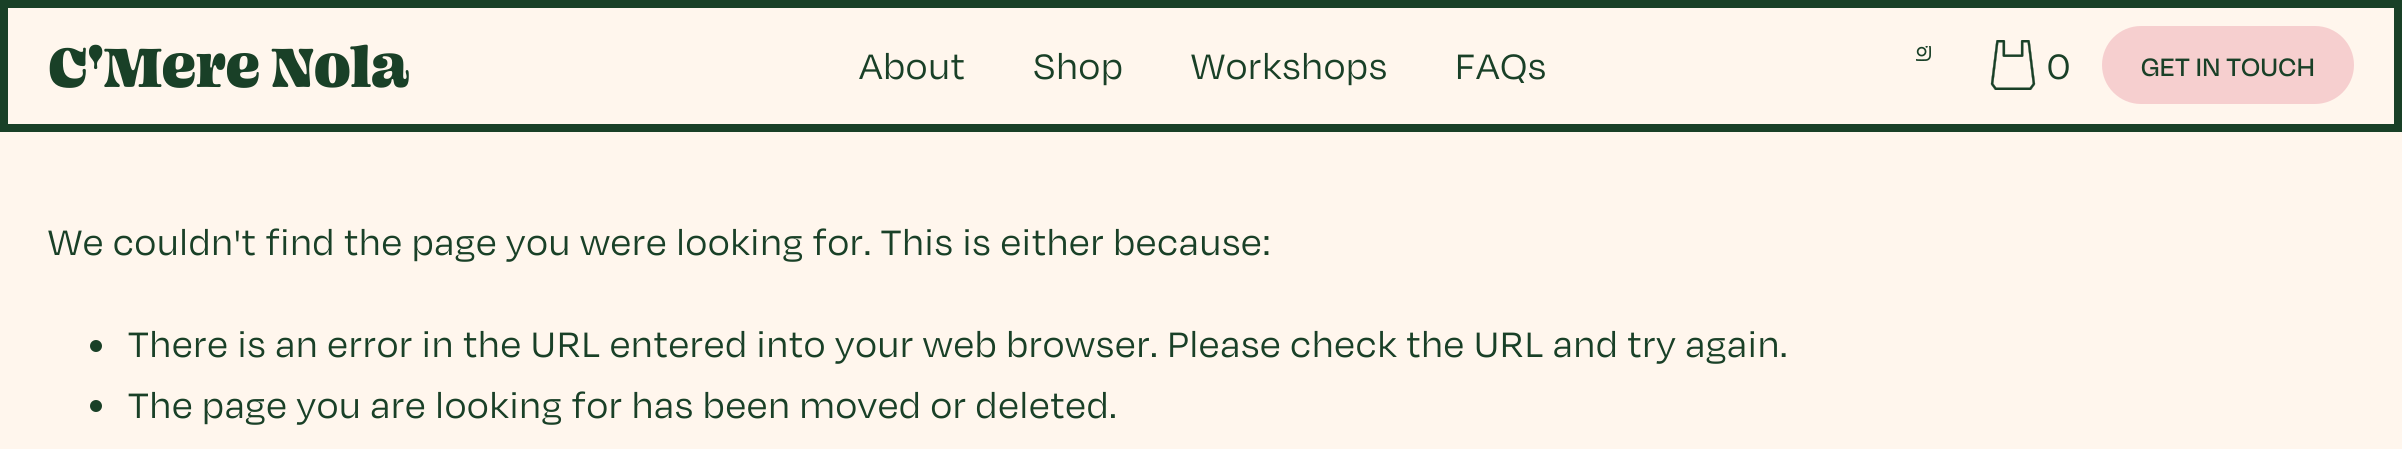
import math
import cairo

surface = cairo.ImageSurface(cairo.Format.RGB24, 2402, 449)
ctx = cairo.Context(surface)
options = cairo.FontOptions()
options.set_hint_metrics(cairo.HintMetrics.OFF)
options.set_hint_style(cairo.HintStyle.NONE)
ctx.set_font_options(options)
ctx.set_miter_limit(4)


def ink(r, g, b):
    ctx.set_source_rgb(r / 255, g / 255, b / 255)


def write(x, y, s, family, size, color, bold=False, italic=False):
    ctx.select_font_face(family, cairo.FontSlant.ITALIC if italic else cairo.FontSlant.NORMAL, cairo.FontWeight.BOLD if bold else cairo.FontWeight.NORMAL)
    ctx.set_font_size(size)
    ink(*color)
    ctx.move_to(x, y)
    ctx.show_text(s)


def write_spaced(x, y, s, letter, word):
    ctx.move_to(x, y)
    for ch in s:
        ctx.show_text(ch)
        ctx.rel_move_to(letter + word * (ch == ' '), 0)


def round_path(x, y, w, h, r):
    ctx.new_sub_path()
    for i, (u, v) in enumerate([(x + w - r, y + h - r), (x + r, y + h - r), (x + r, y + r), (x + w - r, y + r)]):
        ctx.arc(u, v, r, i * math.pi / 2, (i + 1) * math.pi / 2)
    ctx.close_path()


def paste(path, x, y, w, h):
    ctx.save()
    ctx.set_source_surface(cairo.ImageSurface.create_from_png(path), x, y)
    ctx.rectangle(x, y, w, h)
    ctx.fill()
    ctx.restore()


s1 = dict(family="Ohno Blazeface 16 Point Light", size=60.75, color=(25, 64, 39))
s2 = dict(family="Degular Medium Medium", size=29, color=(25, 64, 39))

ink(255, 246, 237)
ctx.paint()
ctx.rectangle(4, 4, 2394, 124)
ink(25, 64, 39)
ctx.set_line_width(8)
ctx.stroke()
write(48, 87, "C'Mere Nola", **s1)
ctx.select_font_face("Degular")
ctx.set_font_size(40.65)
write_spaced(859, 79, "About", 0.8, 0)
write_spaced(1033, 79, "Shop", 0.8, 0)
write_spaced(1191, 79, "Workshops", 0.8, 0)
write_spaced(1455, 79, "FAQs", 0.8, 0)
paste("pic1.png", 1916, 46, 15, 15)
paste("pic2.png", 1990, 40, 46, 50)
write_spaced(2047, 79, "0", 0.8, 0)
ink(246, 207, 207)
round_path(2102, 26, 252, 78, 39)
ctx.fill()
write(2141, 76, "GET IN TOUCH", **s2)
ctx.select_font_face("Degular")
ctx.set_font_size(40.65)
write_spaced(48, 255, "We couldn't find the page you were looking for. This is either because:", 0.8, 0)
ctx.new_path()
ctx.arc(96, 346, 6, 0, 2 * math.pi)
ctx.fill()
write_spaced(128, 357, "There is an error in the URL entered into your web browser. Please check the URL and try again.", 0.8, 0)
ctx.new_path()
ctx.arc(96, 406, 6, 0, 2 * math.pi)
ctx.fill()
write_spaced(128, 418, "The page you are looking for has been moved or deleted.", 0.8, 0)
surface.write_to_png("screenshot.png")
